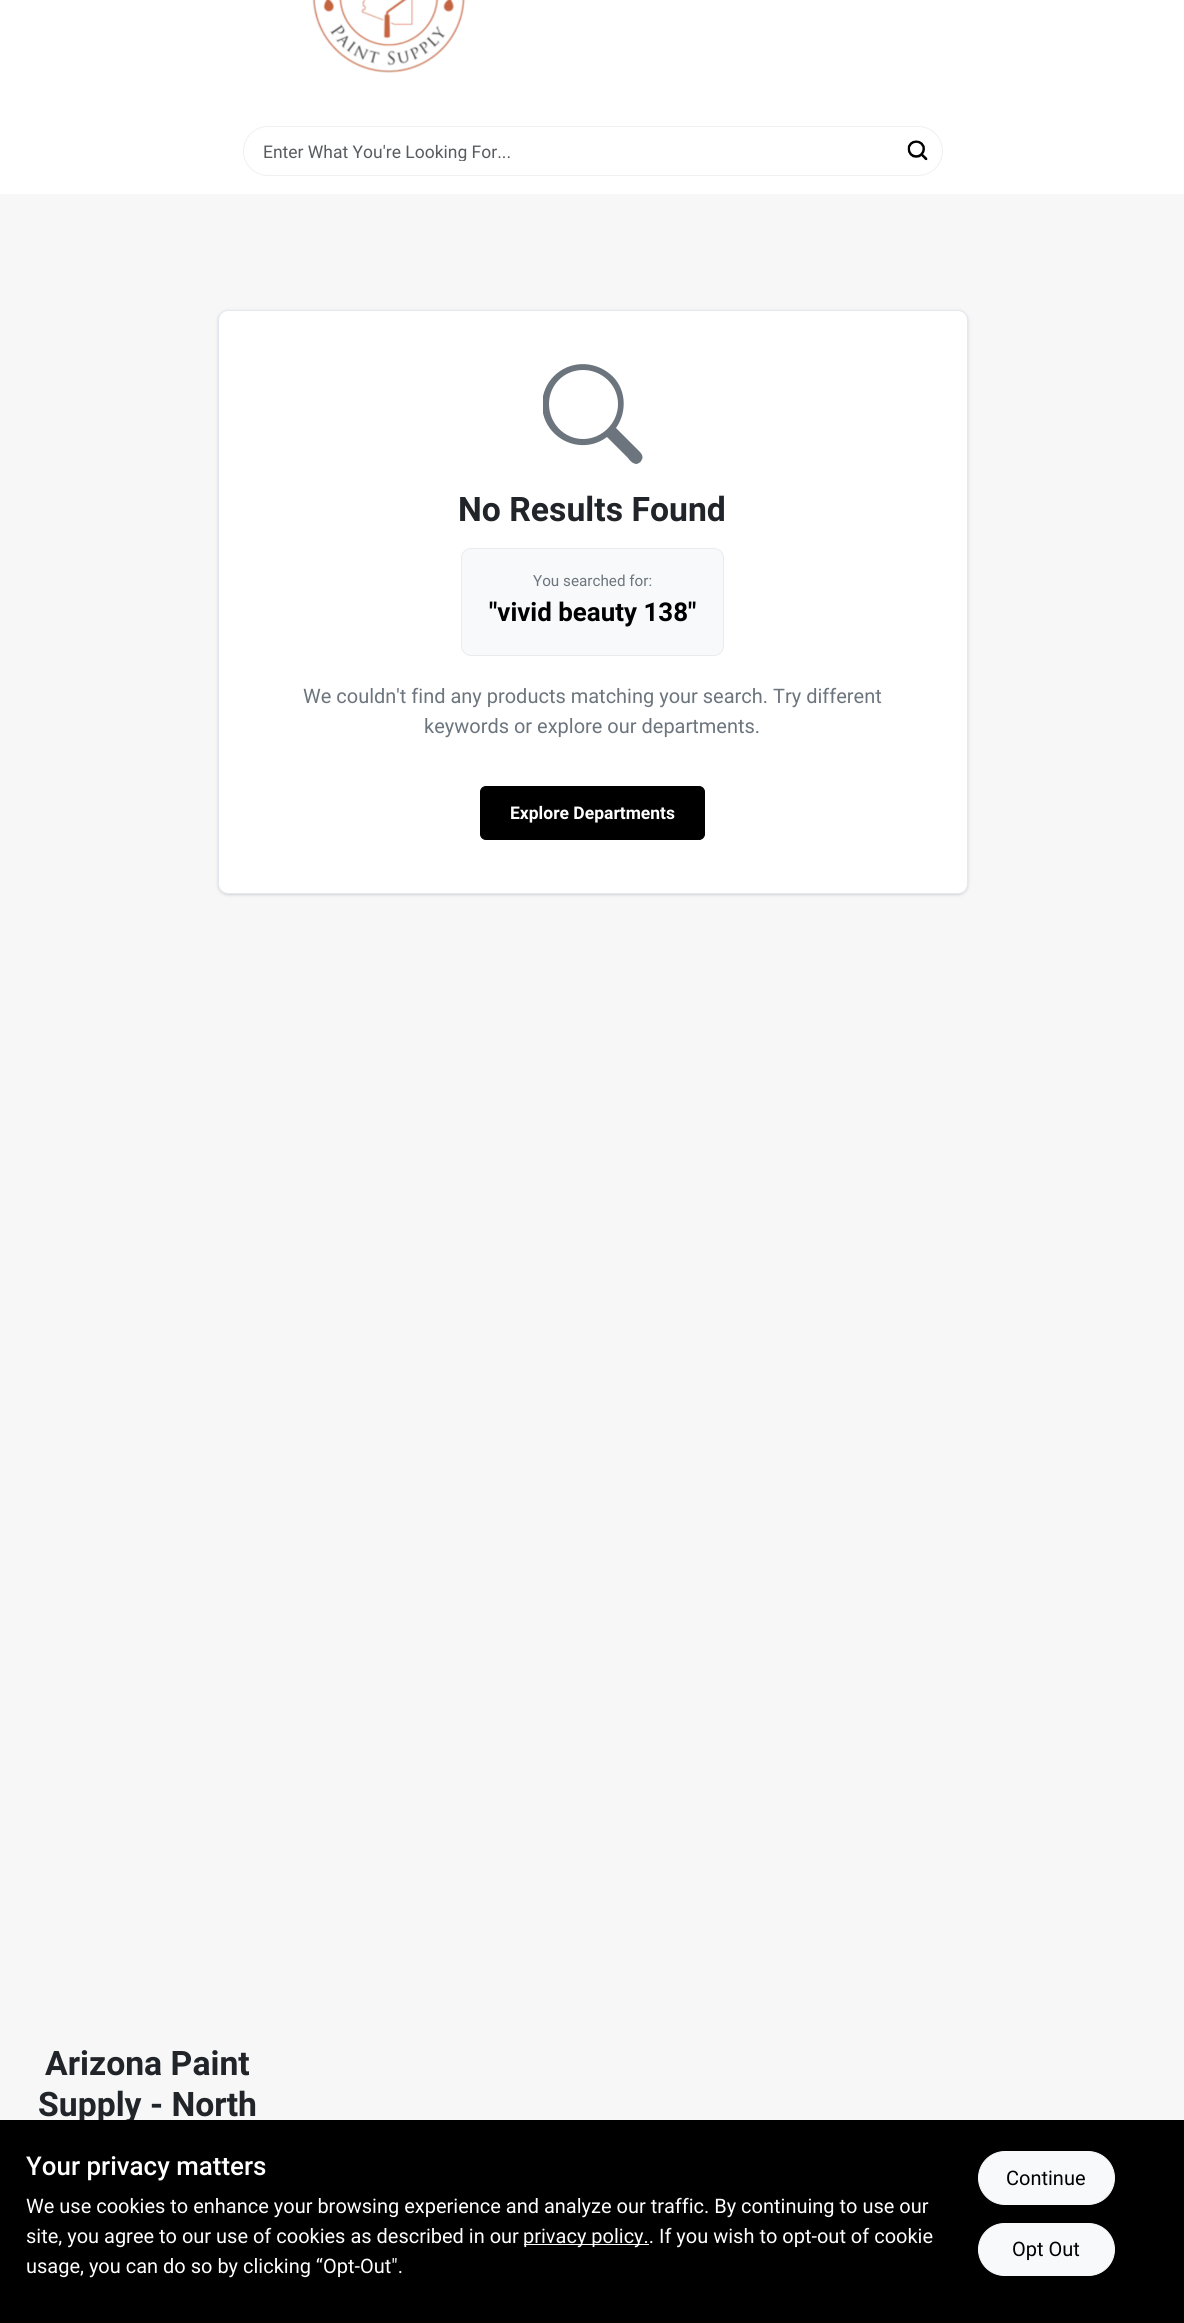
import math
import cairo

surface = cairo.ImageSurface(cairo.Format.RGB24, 1184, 2323)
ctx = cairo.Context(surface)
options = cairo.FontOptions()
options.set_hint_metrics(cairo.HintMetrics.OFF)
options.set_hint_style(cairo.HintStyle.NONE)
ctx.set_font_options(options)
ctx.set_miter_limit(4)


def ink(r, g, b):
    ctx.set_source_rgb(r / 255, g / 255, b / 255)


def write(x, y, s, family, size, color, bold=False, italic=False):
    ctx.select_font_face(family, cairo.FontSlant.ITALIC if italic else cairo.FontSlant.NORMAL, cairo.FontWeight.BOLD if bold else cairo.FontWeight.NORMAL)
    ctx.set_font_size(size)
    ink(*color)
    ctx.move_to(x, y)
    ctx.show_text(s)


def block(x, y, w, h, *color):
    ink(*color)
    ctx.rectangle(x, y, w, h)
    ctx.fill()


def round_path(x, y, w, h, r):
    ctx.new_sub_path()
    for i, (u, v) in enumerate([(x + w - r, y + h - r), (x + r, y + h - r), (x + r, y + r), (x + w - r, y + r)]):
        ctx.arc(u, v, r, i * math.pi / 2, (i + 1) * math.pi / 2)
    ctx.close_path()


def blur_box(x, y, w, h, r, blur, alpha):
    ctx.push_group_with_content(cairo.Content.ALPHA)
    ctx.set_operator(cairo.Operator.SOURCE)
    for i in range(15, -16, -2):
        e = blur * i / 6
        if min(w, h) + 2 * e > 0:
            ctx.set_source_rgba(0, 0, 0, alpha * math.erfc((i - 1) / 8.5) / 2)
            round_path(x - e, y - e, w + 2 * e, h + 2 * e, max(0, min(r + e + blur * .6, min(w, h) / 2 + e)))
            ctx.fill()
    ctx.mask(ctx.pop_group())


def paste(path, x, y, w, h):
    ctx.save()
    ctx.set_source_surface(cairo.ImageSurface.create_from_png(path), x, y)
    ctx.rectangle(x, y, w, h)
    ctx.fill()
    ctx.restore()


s1 = dict(family="Roboto", size=17.5, color=(89, 92, 95))
s2 = dict(family="Roboto", size=33.75, color=(33, 37, 41), bold=True)
s3 = dict(family="Roboto", size=15.25, color=(108, 117, 125))
s4 = dict(family="Roboto", size=25.9, color=(0, 0, 0), bold=True)
s5 = dict(family="Roboto", size=20, color=(108, 117, 125))
s6 = dict(family="Roboto", size=17.5, color=(255, 255, 255), bold=True)
s7 = dict(family="Roboto Medium", size=25.9, color=(255, 255, 255))
s8 = dict(family="Roboto", size=20, color=(255, 255, 255))
s9 = dict(family="Roboto", size=20, color=(0, 0, 0))

ink(247, 247, 247)
ctx.paint()
block(0, 0, 1184, 194, 255, 255, 255)
paste("pic1.png", 312, 0, 153, 73)
round_path(243.5, 126.5, 699, 49, 24.5)
ink(240, 240, 240)
ctx.set_line_width(1)
ctx.stroke()
ctx.save()
ctx.rectangle(263, 141, 660, 20)
ctx.clip()
write(263, 158, "Enter What You're Looking For...", **s1)
ctx.restore()
paste("pic2.png", 907, 140, 21, 21)
ink(0, 0, 0)
blur_box(218, 311, 750, 584, 10, 1, 0.06)
blur_box(218, 311, 750, 584, 10, 2, 0.1)
ink(255, 255, 255)
round_path(218.5, 310.5, 749, 583, 9.5)
ctx.fill_preserve()
ink(226, 232, 240)
ctx.stroke()
ctx.save()
ctx.rectangle(543, 364, 100, 100)
ctx.clip()
ink(108, 117, 125)
ctx.new_path()
ctx.move_to(616, 428)
ctx.curve_to(628, 411, 626, 387, 610, 374)
ctx.curve_to(593, 360, 569, 361, 554, 376)
ctx.curve_to(539, 391, 538, 415, 552, 431)
ctx.curve_to(566, 447, 590, 450, 607, 437)
ctx.line_to(628, 458)
ctx.curve_to(630, 461, 633, 464, 637, 464)
ctx.curve_to(639, 463, 641, 462, 641, 461)
ctx.curve_to(645, 456, 640, 452, 637, 449)
ctx.close_path()
ctx.move_to(618, 404)
ctx.curve_to(618, 423, 602, 439, 583, 439)
ctx.curve_to(564, 439, 549, 423, 549, 404)
ctx.curve_to(549, 385, 564, 370, 583, 370)
ctx.curve_to(602, 370, 618, 385, 618, 404)
ctx.fill()
ctx.restore()
write(458, 521, "No Results Found", **s2)
ink(248, 249, 250)
round_path(461.5, 548.5, 262, 107, 9.5)
ctx.fill_preserve()
ink(233, 236, 239)
ctx.stroke()
write(533, 586, "You searched for:", **s3)
write(489, 621, "\"vivid beauty 138\"", **s4)
write(303, 703, "We couldn't find any products matching your search. Try different", **s5)
write(424, 733, "keywords or explore our departments.", **s5)
ink(0, 0, 0)
round_path(480.5, 786.5, 224, 53, 5.5)
ctx.fill_preserve()
ctx.stroke()
write(510, 819, "Explore Departments", **s6)
write(45, 2075, "Arizona Paint", **s2)
write(38, 2116, "Supply - North", **s2)
block(0, 2120, 1184, 203, 0, 0, 0)
write(26, 2175, "Your privacy matters", **s7)
write(26, 2213, "We use cookies to enhance your browsing experience and analyze our traffic. By continuing to use our", **s8)
write(26, 2243, "site, you agree to our use of cookies as described in our", **s8)
block(524, 2244, 125, 1, 255, 255, 255)
write(523, 2243, "privacy policy.. If you wish to opt-out of cookie", **s8)
write(26, 2273, "usage, you can do so by clicking “Opt-Out\".", **s8)
ink(248, 249, 250)
round_path(978.5, 2151.5, 136, 53, 26.5)
ctx.fill_preserve()
ctx.stroke()
write(1006, 2185, "Continue", **s9)
ink(248, 249, 250)
round_path(978.5, 2223.5, 136, 52, 26)
ctx.fill_preserve()
ctx.stroke()
write(1012, 2256, "Opt Out", **s9)
surface.write_to_png("screenshot.png")
